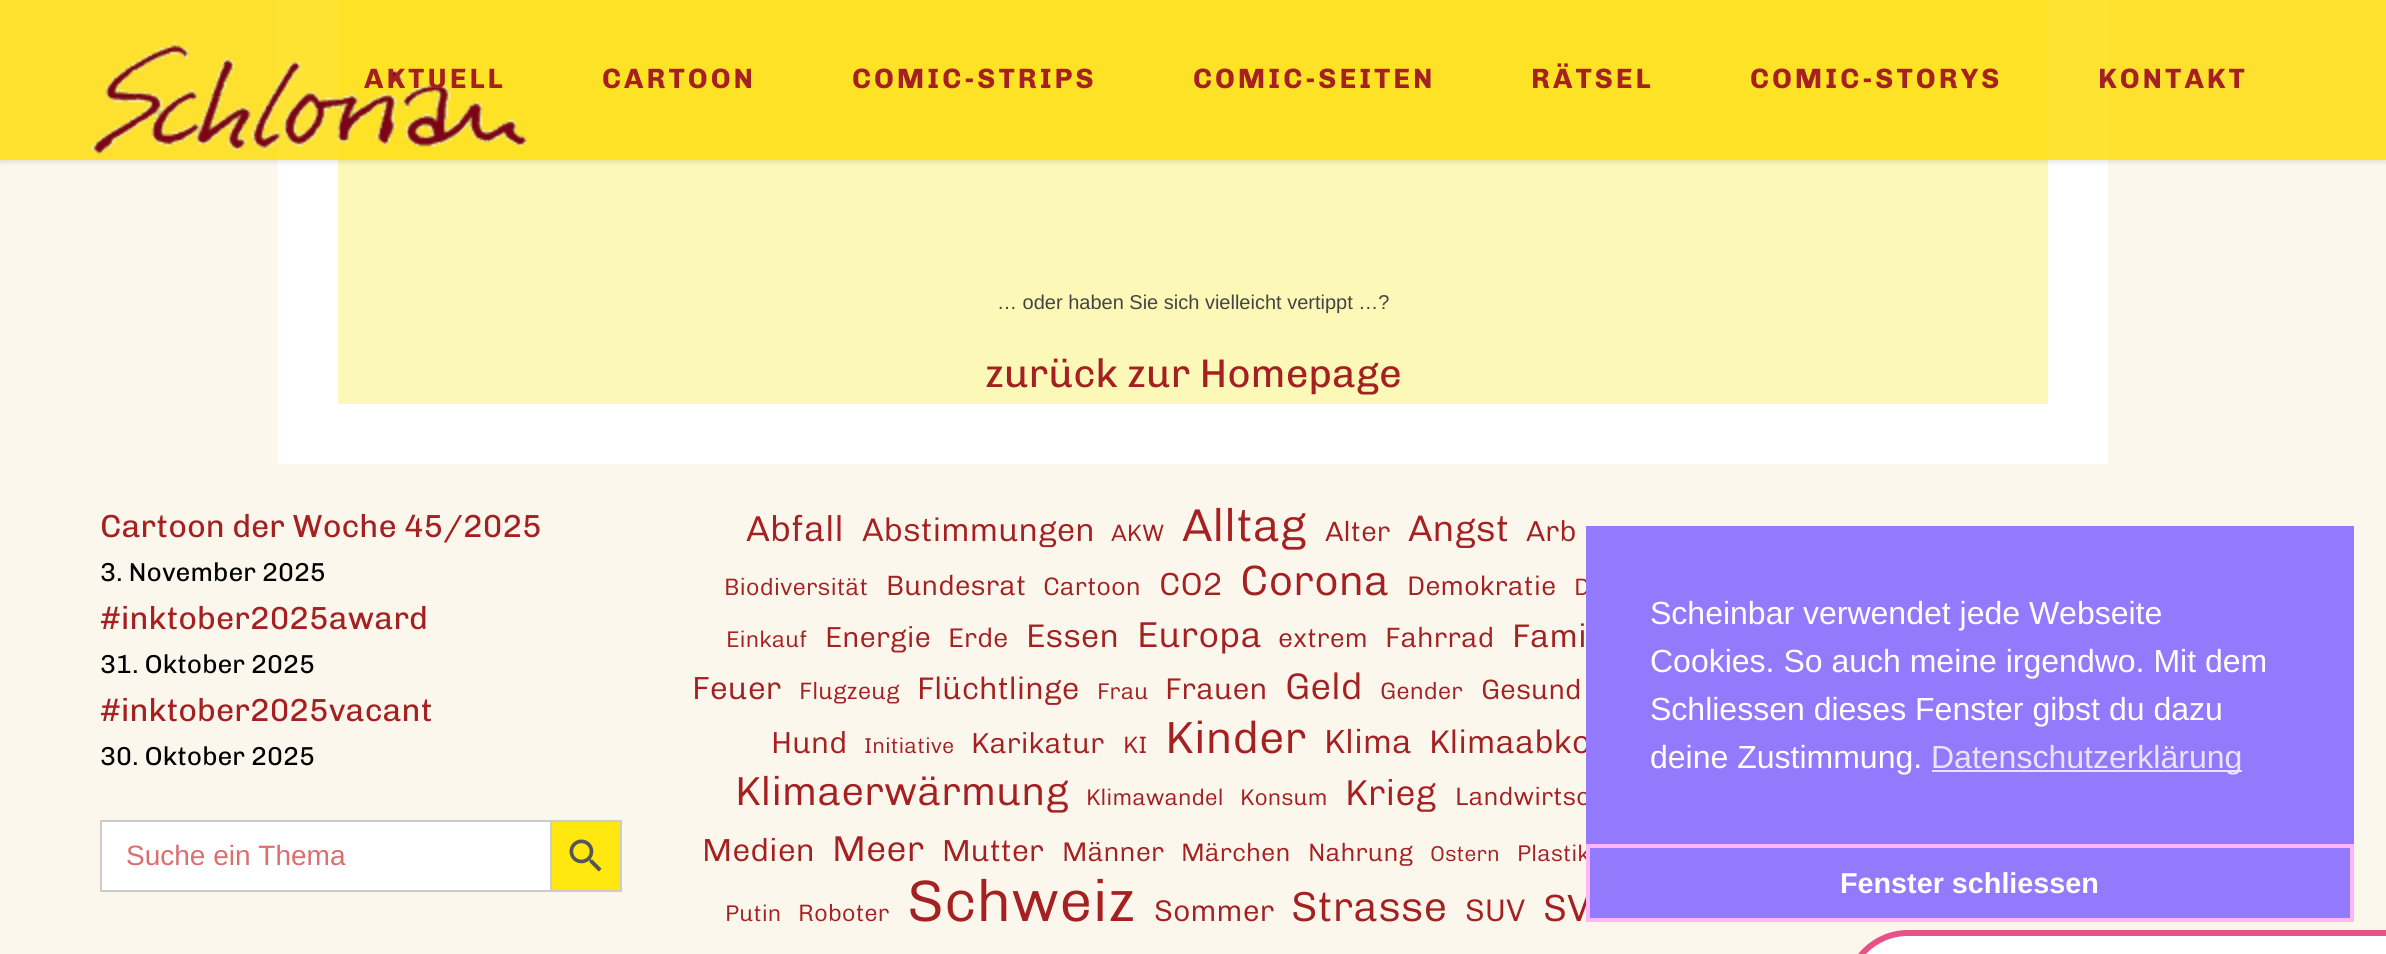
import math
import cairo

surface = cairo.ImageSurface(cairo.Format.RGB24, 2386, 954)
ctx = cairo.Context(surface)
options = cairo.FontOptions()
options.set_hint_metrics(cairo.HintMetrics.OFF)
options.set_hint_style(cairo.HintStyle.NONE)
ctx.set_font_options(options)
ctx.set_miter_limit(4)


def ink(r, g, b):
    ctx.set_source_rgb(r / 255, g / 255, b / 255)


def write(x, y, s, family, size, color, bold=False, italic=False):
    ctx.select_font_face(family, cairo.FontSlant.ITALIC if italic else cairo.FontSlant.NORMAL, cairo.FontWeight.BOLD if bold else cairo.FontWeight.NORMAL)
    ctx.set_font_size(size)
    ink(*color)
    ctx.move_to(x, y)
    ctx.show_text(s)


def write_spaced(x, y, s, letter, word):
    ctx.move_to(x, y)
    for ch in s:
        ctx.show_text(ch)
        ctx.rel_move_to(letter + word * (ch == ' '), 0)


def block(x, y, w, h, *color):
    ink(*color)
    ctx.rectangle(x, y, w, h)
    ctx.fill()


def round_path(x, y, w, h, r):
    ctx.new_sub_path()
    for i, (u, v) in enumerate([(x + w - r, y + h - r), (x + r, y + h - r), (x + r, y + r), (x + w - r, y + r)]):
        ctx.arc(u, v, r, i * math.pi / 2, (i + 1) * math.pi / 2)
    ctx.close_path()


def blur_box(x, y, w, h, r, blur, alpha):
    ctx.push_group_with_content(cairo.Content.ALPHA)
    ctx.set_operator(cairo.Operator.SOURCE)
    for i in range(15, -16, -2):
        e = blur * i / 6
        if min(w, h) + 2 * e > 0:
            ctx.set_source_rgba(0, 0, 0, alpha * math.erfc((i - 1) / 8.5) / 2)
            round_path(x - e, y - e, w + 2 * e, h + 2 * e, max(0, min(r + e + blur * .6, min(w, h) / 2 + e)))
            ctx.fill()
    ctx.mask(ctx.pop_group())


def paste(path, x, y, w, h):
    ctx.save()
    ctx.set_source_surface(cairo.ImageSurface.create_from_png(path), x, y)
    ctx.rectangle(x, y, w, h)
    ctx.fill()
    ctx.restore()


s1 = dict(family="Liberation Sans", size=20, color=(68, 68, 68))
s2 = dict(family="Chivo", size=40, color=(165, 33, 33))
s3 = dict(family="Chivo", size=32, color=(165, 33, 33))
s4 = dict(family="Chivo", size=26, color=(0, 0, 0))
s5 = dict(family="Liberation Sans", size=28, color=(221, 110, 110))
s6 = dict(family="Chivo Light", size=36, color=(165, 33, 33))
s7 = dict(family="Chivo Light", size=32.75, color=(165, 33, 33))
s8 = dict(family="Chivo Light", size=23.75, color=(165, 33, 33))
s9 = dict(family="Chivo Light", size=46, color=(165, 33, 33))
s10 = dict(family="Chivo Light", size=28, color=(165, 33, 33))
s11 = dict(family="Chivo Light", size=37, color=(165, 33, 33))
s12 = dict(family="Chivo Light", size=29, color=(165, 33, 33))
s13 = dict(family="Chivo Light", size=25.25, color=(165, 33, 33))
s14 = dict(family="Chivo Light", size=32, color=(165, 33, 33))
s15 = dict(family="Chivo Light", size=42.5, color=(165, 33, 33))
s16 = dict(family="Chivo Light", size=27, color=(165, 33, 33))
s17 = dict(family="Chivo Light", size=22.75, color=(165, 33, 33))
s18 = dict(family="Chivo Light", size=26.5, color=(165, 33, 33))
s19 = dict(family="Chivo Light", size=31.25, color=(165, 33, 33))
s20 = dict(family="Chivo Light", size=30, color=(165, 33, 33))
s21 = dict(family="Chivo Light", size=30.5, color=(165, 33, 33))
s22 = dict(family="Chivo Light", size=21.5, color=(165, 33, 33))
s23 = dict(family="Chivo Light", size=45, color=(165, 33, 33))
s24 = dict(family="Chivo Light", size=33.5, color=(165, 33, 33))
s25 = dict(family="Chivo Light", size=40.5, color=(165, 33, 33))
s26 = dict(family="Chivo Light", size=58.5, color=(165, 33, 33))
s27 = dict(family="Chivo Light", size=42, color=(165, 33, 33))
s28 = dict(family="Chivo Light", size=38, color=(165, 33, 33))
s29 = dict(family="Liberation Sans", size=32, color=(255, 255, 255))
s30 = dict(family="Liberation Sans", size=32, color=(233, 228, 254))
s31 = dict(family="Liberation Sans", size=28.75, color=(255, 255, 255), bold=True)

ink(252, 247, 237)
ctx.paint()
ink(252, 249, 184)
ctx.rectangle(308, -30, 1770, 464)
ctx.fill_preserve()
ink(255, 255, 255)
ctx.set_line_width(60)
ctx.stroke()
ctx.save()
ctx.rectangle(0, 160, 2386, 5)
ctx.clip()
ink(0, 0, 0)
blur_box(0, 2, 2386, 160, 0, 3, 0.11)
ctx.restore()
ctx.set_source_rgba(1, 0.863, 0, 0.8)
ctx.rectangle(0, 0, 2386, 160)
ctx.fill()
paste("pic1.png", 91, 41, 436, 114)
ctx.select_font_face("Chivo", cairo.FontSlant.NORMAL, cairo.FontWeight.BOLD)
ctx.set_font_size(28)
ink(165, 33, 33)
write_spaced(364, 88, "AKTUELL", 3, 0)
write_spaced(602, 88, "CARTOON", 3, 0)
write_spaced(852, 88, "COMIC-STRIPS", 3, 0)
write_spaced(1193, 88, "COMIC-SEITEN", 3, 0)
write_spaced(1531, 88, "RÄTSEL", 3, 0)
write_spaced(1750, 88, "COMIC-STORYS", 3, 0)
write_spaced(2098, 88, "KONTAKT", 3, 0)
write(997, 309, "… oder haben Sie sich vielleicht vertippt …?", **s1)
write(985, 387, "zurück zur Homepage", **s2)
write(100, 537, "Cartoon der Woche 45/2025", **s3)
write(100, 581, "3. November 2025", **s4)
write(100, 629, "#inktober2025award", **s3)
write(100, 673, "31. Oktober 2025", **s4)
write(100, 721, "#inktober2025vacant", **s3)
write(100, 765, "30. Oktober 2025", **s4)
block(102, 822, 448, 68, 255, 255, 255)
block(100, 820, 450, 2, 204, 204, 204)
block(100, 890, 450, 2, 204, 204, 204)
block(100, 820, 2, 72, 204, 204, 204)
write(126, 865, "Suche ein Thema", **s5)
ink(255, 231, 15)
ctx.rectangle(551, 821, 70, 70)
ctx.fill_preserve()
ink(204, 204, 204)
ctx.set_line_width(2)
ctx.stroke()
paste("pic2.png", 569, 839, 33, 33)
write(746, 541, "Abfall", **s6)
write(862, 541, "Abstimmungen", **s7)
write(1111, 541, "AKW", **s8)
write(1182, 541, "Alltag", **s9)
write(1325, 541, "Alter", **s10)
write(1408, 541, "Angst", **s11)
write(1526, 541, "Arb", **s12)
write(724, 595, "Biodiversität", **s8)
write(886, 595, "Bundesrat", **s10)
write(1043, 595, "Cartoon", **s13)
write(1159, 595, "CO2", **s14)
write(1240, 595, "Corona", **s15)
write(1407, 595, "Demokratie", **s16)
write(1574, 595, "D", **s8)
write(726, 647, "Einkauf", **s17)
write(825, 647, "Energie", **s12)
write(948, 647, "Erde", **s16)
write(1026, 647, "Essen", **s7)
write(1137, 647, "Europa", **s6)
write(1278, 647, "extrem", **s18)
write(1385, 647, "Fahrrad", **s10)
write(1512, 647, "Fami", **s7)
write(692, 699, "Feuer", **s14)
write(799, 699, "Flugzeug", **s8)
write(917, 699, "Flüchtlinge", **s19)
write(1097, 699, "Frau", **s17)
write(1165, 699, "Frauen", **s20)
write(1285, 699, "Geld", **s11)
write(1380, 699, "Gender", **s8)
write(1481, 699, "Gesund", **s10)
write(771, 753, "Hund", **s21)
write(864, 753, "Initiative", **s22)
write(971, 753, "Karikatur", **s12)
write(1123, 753, "KI", **s8)
write(1165, 753, "Kinder", **s23)
write(1324, 753, "Klima", **s24)
write(1429, 753, "Klimaabko", **s7)
write(735, 805, "Klimaerwärmung", **s25)
write(1086, 805, "Klimawandel", **s17)
write(1240, 805, "Konsum", **s17)
write(1345, 805, "Krieg", **s6)
write(1455, 805, "Landwirtsc", **s13)
write(702, 861, "Medien", **s14)
write(832, 861, "Meer", **s6)
write(942, 861, "Mutter", **s21)
write(1062, 861, "Männer", **s16)
write(1181, 861, "Märchen", **s13)
write(1308, 861, "Nahrung", **s13)
write(1430, 861, "Ostern", **s22)
write(1517, 861, "Plastik", **s17)
write(725, 921, "Putin", **s17)
write(798, 921, "Roboter", **s8)
write(907, 921, "Schweiz", **s26)
write(1154, 921, "Sommer", **s20)
write(1291, 921, "Strasse", **s27)
write(1465, 921, "SUV", **s19)
write(1543, 921, "SV", **s28)
ink(255, 255, 255)
ctx.new_path()
ctx.move_to(1908, 930)
ctx.line_to(2386, 930)
ctx.line_to(2386, 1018)
ctx.line_to(1908, 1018)
ctx.curve_to(1872.5, 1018, 1844, 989.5, 1844, 954)
ctx.line_to(1844, 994)
ctx.curve_to(1844, 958.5, 1872.5, 930, 1908, 930)
ctx.close_path()
ctx.fill()
round_path(1847, 933, 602, 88, 61)
ink(232, 82, 137)
ctx.set_line_width(6)
ctx.stroke()
block(1586, 526, 768, 392, 147, 122, 252)
write(1650, 624, "Scheinbar verwendet jede Webseite", **s29)
write(1650, 672, "Cookies. So auch meine irgendwo. Mit dem", **s29)
write(1650, 720, "Schliessen dieses Fenster gibst du dazu", **s29)
write(1650, 768, "deine Zustimmung.", **s29)
block(1932, 770, 310, 2, 233, 228, 254)
write(1931, 768, "Datenschutzerklärung", **s30)
ctx.rectangle(1588, 846, 764, 74)
ink(255, 182, 255)
ctx.set_line_width(4)
ctx.stroke()
write(1840, 893, "Fenster schliessen", **s31)
surface.write_to_png("screenshot.png")
